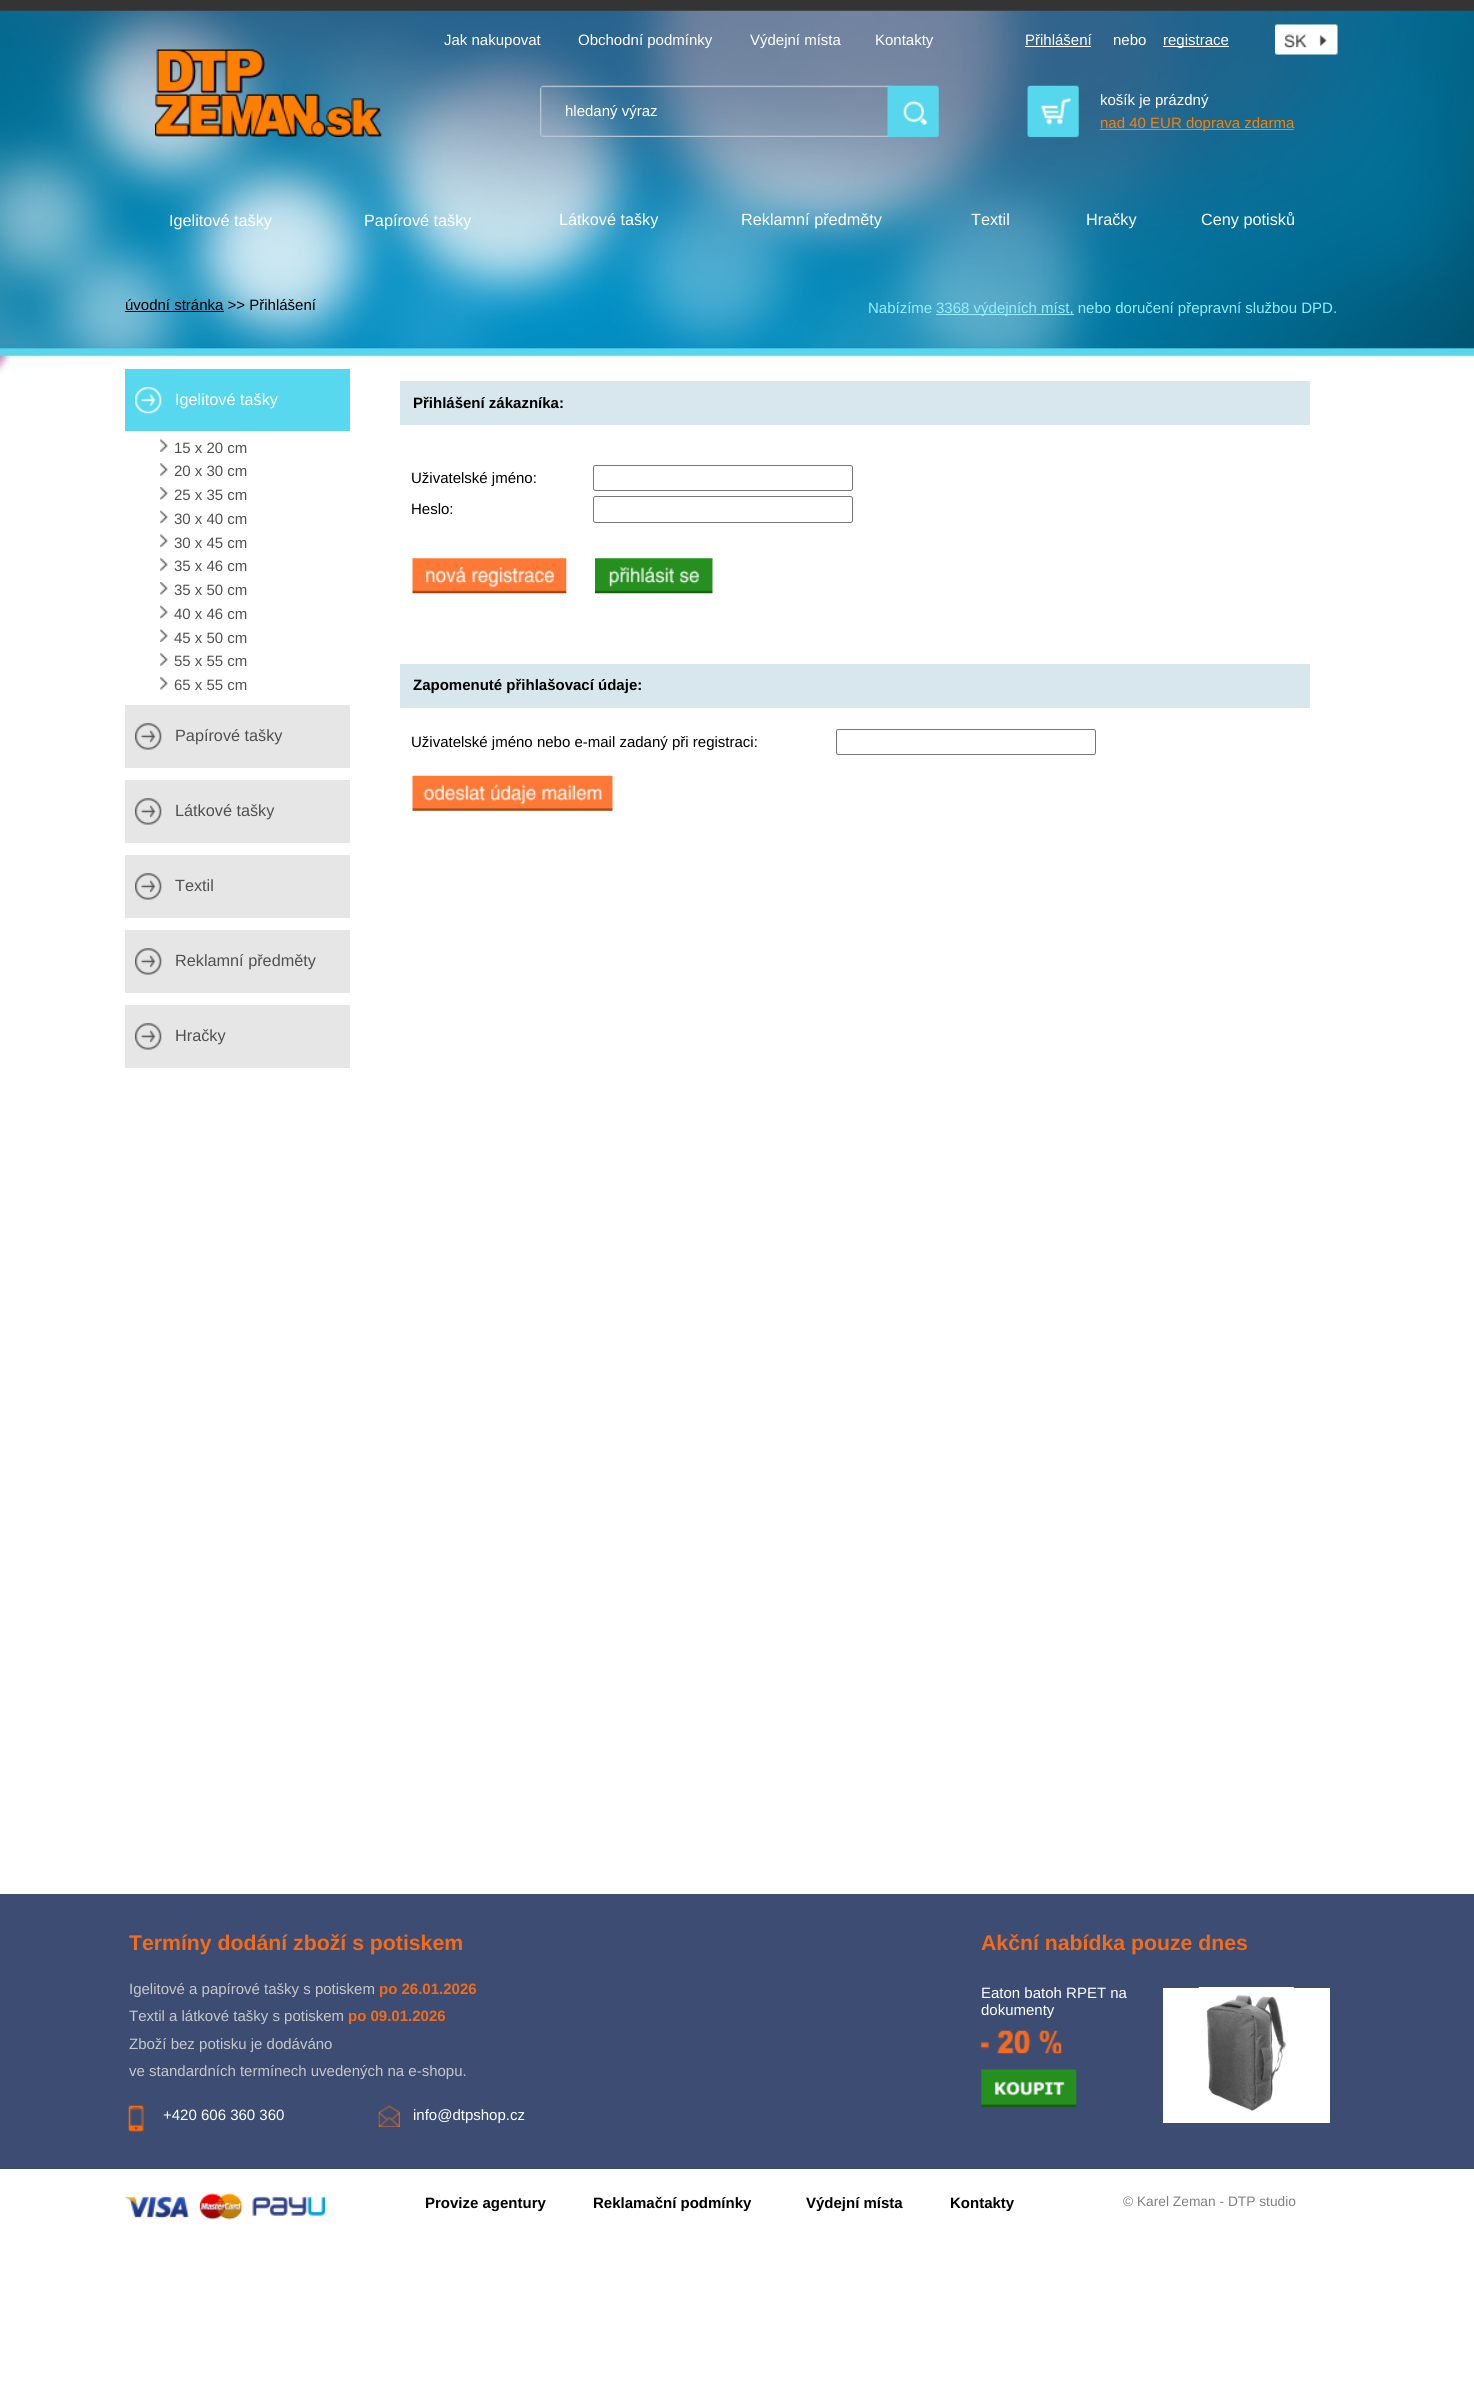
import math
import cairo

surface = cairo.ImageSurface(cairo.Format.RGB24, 1474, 2397)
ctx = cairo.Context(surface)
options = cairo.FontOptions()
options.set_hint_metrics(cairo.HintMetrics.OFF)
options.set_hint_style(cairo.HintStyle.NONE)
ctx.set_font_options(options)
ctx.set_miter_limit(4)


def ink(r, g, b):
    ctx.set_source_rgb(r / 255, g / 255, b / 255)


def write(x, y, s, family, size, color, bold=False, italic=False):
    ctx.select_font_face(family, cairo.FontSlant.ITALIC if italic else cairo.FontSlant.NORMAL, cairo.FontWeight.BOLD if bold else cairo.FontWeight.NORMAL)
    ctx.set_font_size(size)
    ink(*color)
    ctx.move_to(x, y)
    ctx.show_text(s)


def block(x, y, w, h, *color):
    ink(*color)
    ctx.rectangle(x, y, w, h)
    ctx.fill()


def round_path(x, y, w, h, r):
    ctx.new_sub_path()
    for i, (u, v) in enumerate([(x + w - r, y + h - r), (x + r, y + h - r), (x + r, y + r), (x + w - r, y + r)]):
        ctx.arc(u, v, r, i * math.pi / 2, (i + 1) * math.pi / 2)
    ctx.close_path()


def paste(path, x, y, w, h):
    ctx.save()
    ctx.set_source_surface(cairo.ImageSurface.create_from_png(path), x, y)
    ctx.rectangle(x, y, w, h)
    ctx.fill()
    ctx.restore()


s1 = dict(family="Liberation Sans", size=15, color=(255, 255, 255))
s2 = dict(family="Liberation Sans", size=15, color=(255, 128, 0))
s3 = dict(family="Liberation Sans", size=15, color=(145, 239, 255))
s4 = dict(family="Liberation Sans", size=16.25, color=(255, 255, 255))
s5 = dict(family="Liberation Sans", size=15, color=(0, 0, 0))
s6 = dict(family="Liberation Sans", size=15, color=(80, 80, 80))
s7 = dict(family="Liberation Sans", size=16.25, color=(80, 80, 80))
s8 = dict(family="Liberation Sans", size=21.25, color=(242, 108, 26), bold=True)
s9 = dict(family="Liberation Sans", size=15, color=(200, 200, 200))
s10 = dict(family="Liberation Sans", size=15, color=(242, 108, 26), bold=True)
s11 = dict(family="Liberation Sans", size=15, color=(0, 0, 0), bold=True)
s12 = dict(family="Liberation Sans", size=13.75, color=(128, 128, 128))

ink(255, 255, 255)
ctx.paint()
block(0, 0, 1474, 11, 52, 52, 52)
paste("pic1.png", 0, 10, 1474, 364)
paste("pic2.png", 1275, 24, 63, 31)
write(444, 45, "Jak nakupovat", **s1)
write(578, 45, "Obchodní podmínky", **s1)
write(750, 45, "Výdejní místa", **s1)
write(875, 45, "Kontakty", **s1)
write(1025, 45, "Přihlášení", **s1)
block(1025, 46, 66, 1, 255, 255, 255)
write(1113, 45, "nebo", **s1)
block(1163, 46, 66, 1, 255, 255, 255)
write(1163, 45, "registrace", **s1)
paste("pic3.png", 155, 49, 227, 88)
paste("pic4.png", 1027, 85, 52, 53)
write(1100, 105, "košík je prázdný", **s1)
paste("pic5.png", 540, 85, 355, 52)
paste("pic6.png", 887, 85, 52, 53)
write(565, 116, "hledaný výraz", **s1)
block(1100, 129, 194, 1, 255, 128, 0)
write(1100, 128, "nad 40 EUR doprava zdarma", **s2)
write(868, 313, "Nabízíme", **s3)
block(936, 314, 138, 1, 145, 239, 255)
write(936, 313, "3368 výdejních míst, nebo doručení přepravní službou DPD.", **s3)
write(169, 226, "Igelitové tašky", **s4)
write(364, 226, "Papírové tašky", **s4)
write(559, 225, "Látkové tašky", **s4)
write(741, 225, "Reklamní předměty", **s4)
write(971, 225, "Textil", **s4)
write(1086, 225, "Hračky", **s4)
write(1201, 225, "Ceny potisků", **s4)
write(125, 310, "úvodní stránka >> Přihlášení", **s5)
block(125, 311, 99, 1, 0, 0, 0)
block(125, 369, 225, 62, 87, 216, 239)
paste("pic7.png", 135, 387, 27, 27)
write(175, 405, "Igelitové tašky", **s4)
paste("pic8.png", 160, 439, 8, 13)
write(174, 453, "15 x 20 cm", **s6)
paste("pic9.png", 160, 463, 8, 13)
write(174, 476, "20 x 30 cm", **s6)
paste("pic10.png", 160, 487, 8, 13)
write(174, 500, "25 x 35 cm", **s6)
paste("pic11.png", 160, 510, 8, 14)
write(174, 524, "30 x 40 cm", **s6)
paste("pic8.png", 160, 534, 8, 13)
write(174, 548, "30 x 45 cm", **s6)
paste("pic9.png", 160, 558, 8, 13)
write(174, 571, "35 x 46 cm", **s6)
paste("pic10.png", 160, 582, 8, 13)
write(174, 595, "35 x 50 cm", **s6)
paste("pic11.png", 160, 605, 8, 14)
write(174, 619, "40 x 46 cm", **s6)
paste("pic8.png", 160, 629, 8, 13)
write(174, 643, "45 x 50 cm", **s6)
paste("pic9.png", 160, 653, 8, 13)
write(174, 666, "55 x 55 cm", **s6)
paste("pic10.png", 160, 677, 8, 13)
write(174, 690, "65 x 55 cm", **s6)
block(125, 705, 225, 63, 230, 230, 230)
paste("pic12.png", 135, 723, 27, 27)
write(175, 741, "Papírové tašky", **s7)
block(125, 780, 225, 63, 230, 230, 230)
paste("pic12.png", 135, 798, 27, 27)
write(175, 816, "Látkové tašky", **s7)
block(125, 855, 225, 63, 230, 230, 230)
paste("pic12.png", 135, 873, 27, 27)
write(175, 891, "Textil", **s7)
block(125, 930, 225, 63, 230, 230, 230)
paste("pic12.png", 135, 948, 27, 27)
write(175, 966, "Reklamní předměty", **s7)
block(125, 1005, 225, 63, 230, 230, 230)
paste("pic12.png", 135, 1023, 27, 27)
write(175, 1041, "Hračky", **s7)
block(0, 1894, 1474, 275, 60, 76, 114)
write(129, 1950, "Termíny dodání zboží s potiskem", **s8)
write(981, 1950, "Akční nabídka pouze dnes", **s8)
paste("pic13.png", 128, 2105, 16, 27)
write(163, 2120, "+420 606 360 360", **s1)
paste("pic14.png", 378, 2105, 22, 22)
write(413, 2120, "info@dtpshop.cz", **s1)
write(981, 1998, "Eaton batoh RPET na", **s1)
write(981, 2015, "dokumenty", **s1)
paste("pic15.png", 981, 2030, 81, 24)
paste("pic16.png", 981, 2069, 96, 38)
block(1163, 1988, 167, 135, 255, 255, 255)
paste("pic17.png", 1198, 1987, 96, 124)
write(129, 1994, "Igelitové a papírové tašky s potiskem", **s9)
write(379, 1994, "po 26.01.2026", **s10)
write(129, 2021, "Textil a látkové tašky s potiskem", **s9)
write(348, 2021, "po 09.01.2026", **s10)
write(129, 2049, "Zboží bez potisku je dodáváno", **s9)
write(129, 2076, "ve standardních termínech uvedených na e-shopu.", **s9)
paste("pic18.png", 125, 2193, 202, 27)
write(425, 2208, "Provize agentury", **s11)
write(593, 2208, "Reklamační podmínky", **s11)
write(806, 2208, "Výdejní místa", **s11)
write(950, 2208, "Kontakty", **s11)
write(1123, 2206, "© Karel Zeman - DTP studio", **s12)
block(400, 381, 910, 44, 216, 230, 237)
write(413, 408, "Přihlášení zákazníka:", **s11)
write(411, 483, "Uživatelské jméno:", **s5)
round_path(593.5, 465.5, 259, 25, 2)
ink(118, 118, 118)
ctx.set_line_width(1)
ctx.stroke()
write(411, 514, "Heslo:", **s5)
round_path(593.5, 496.5, 259, 26, 2)
ink(118, 118, 118)
ctx.stroke()
paste("pic19.png", 412, 558, 155, 36)
paste("pic20.png", 595, 558, 118, 36)
block(400, 664, 910, 44, 216, 230, 237)
write(413, 690, "Zapomenuté přihlašovací údaje:", **s11)
write(411, 747, "Uživatelské jméno nebo e-mail zadaný při registraci:", **s5)
round_path(836.5, 729.5, 259, 25, 2)
ink(118, 118, 118)
ctx.stroke()
paste("pic21.png", 412, 775, 201, 36)
surface.write_to_png("screenshot.png")
